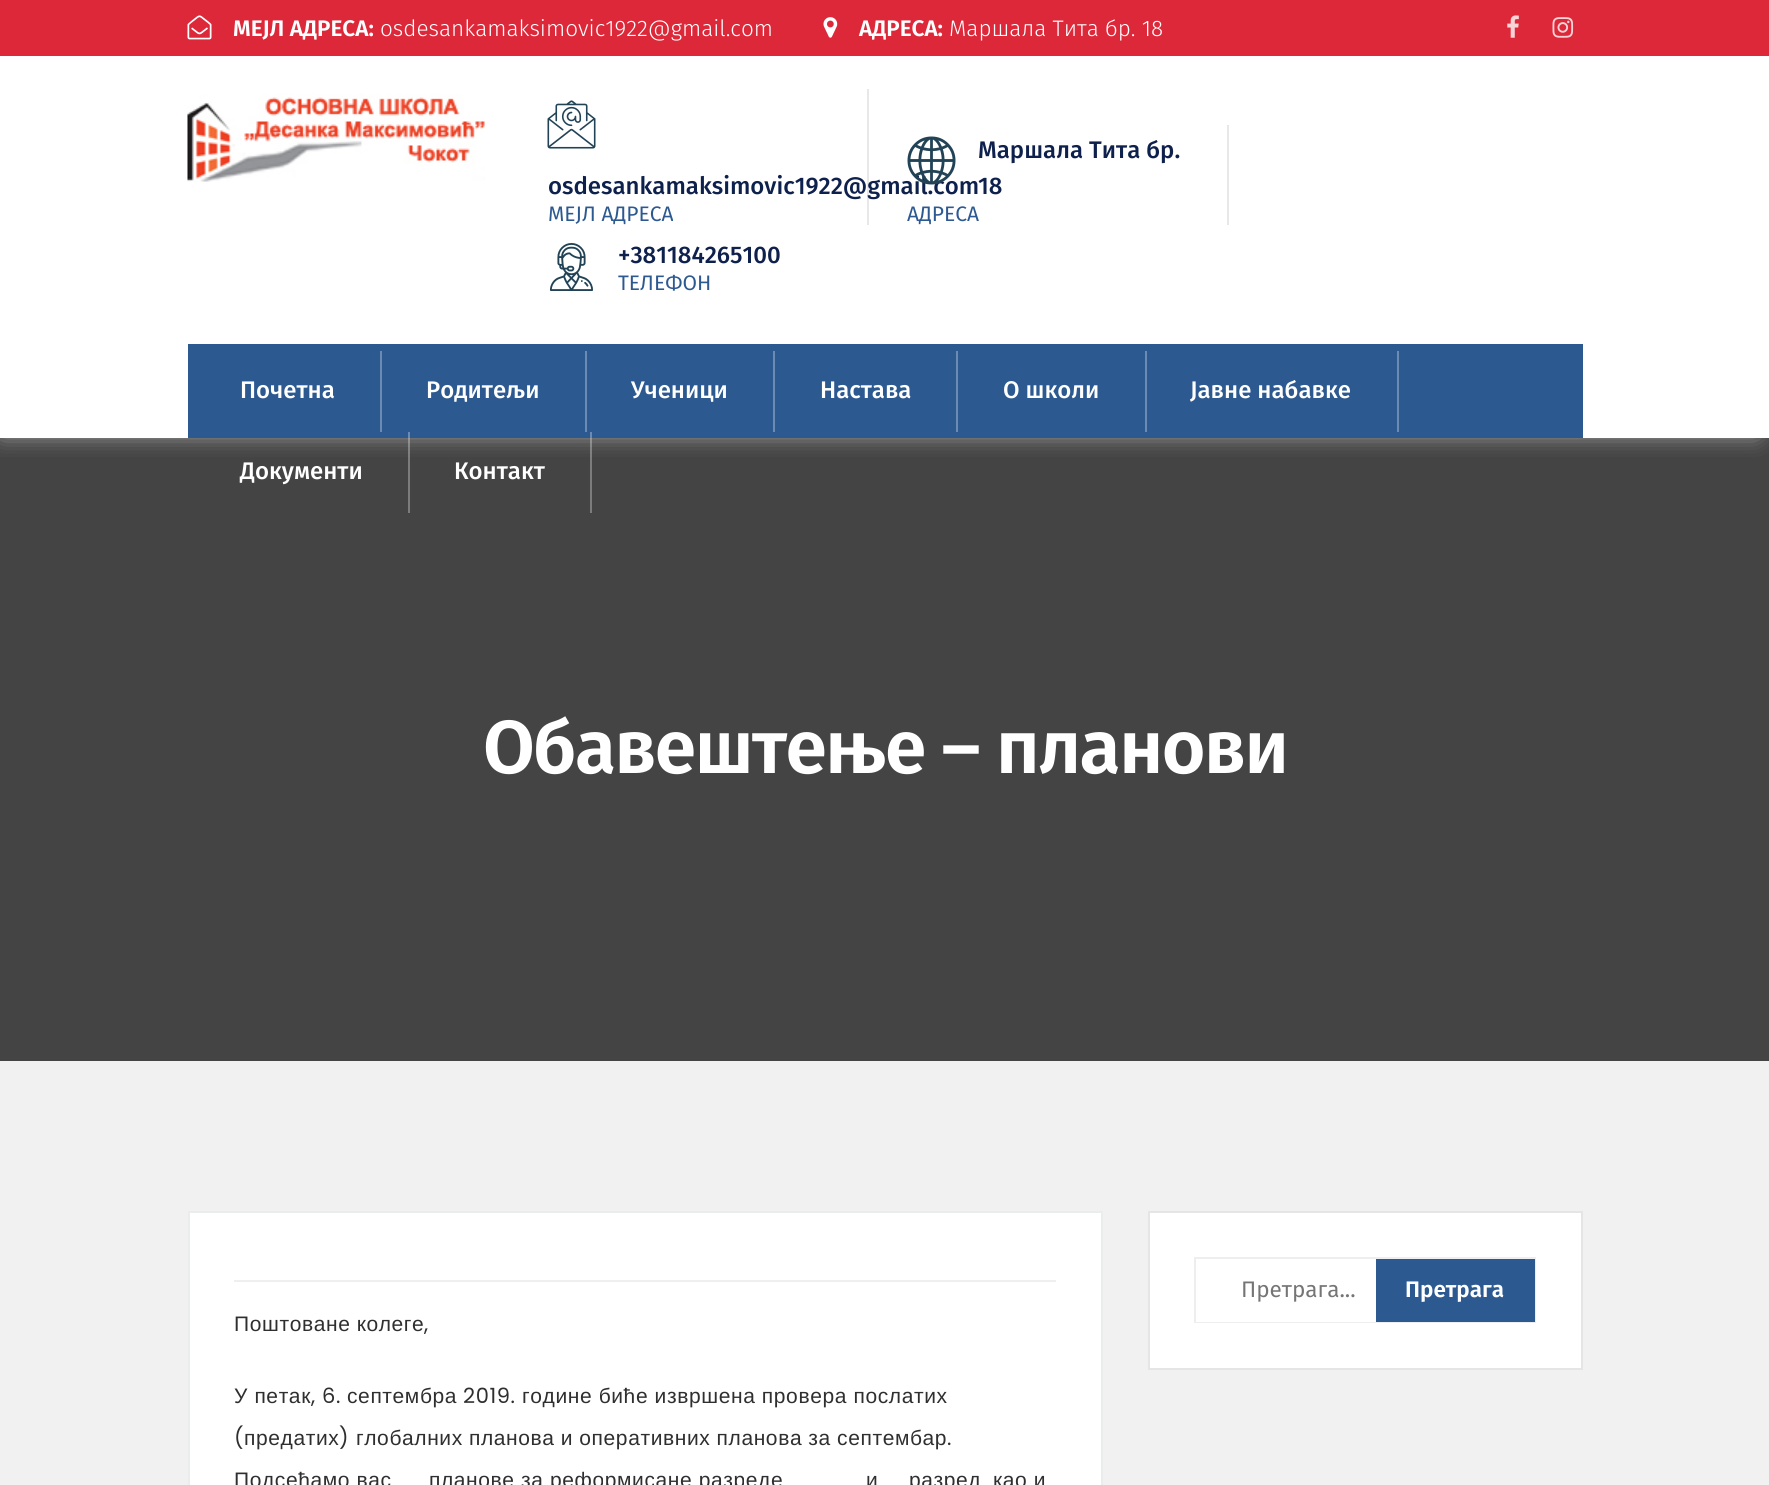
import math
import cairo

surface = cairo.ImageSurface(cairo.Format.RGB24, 1769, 1485)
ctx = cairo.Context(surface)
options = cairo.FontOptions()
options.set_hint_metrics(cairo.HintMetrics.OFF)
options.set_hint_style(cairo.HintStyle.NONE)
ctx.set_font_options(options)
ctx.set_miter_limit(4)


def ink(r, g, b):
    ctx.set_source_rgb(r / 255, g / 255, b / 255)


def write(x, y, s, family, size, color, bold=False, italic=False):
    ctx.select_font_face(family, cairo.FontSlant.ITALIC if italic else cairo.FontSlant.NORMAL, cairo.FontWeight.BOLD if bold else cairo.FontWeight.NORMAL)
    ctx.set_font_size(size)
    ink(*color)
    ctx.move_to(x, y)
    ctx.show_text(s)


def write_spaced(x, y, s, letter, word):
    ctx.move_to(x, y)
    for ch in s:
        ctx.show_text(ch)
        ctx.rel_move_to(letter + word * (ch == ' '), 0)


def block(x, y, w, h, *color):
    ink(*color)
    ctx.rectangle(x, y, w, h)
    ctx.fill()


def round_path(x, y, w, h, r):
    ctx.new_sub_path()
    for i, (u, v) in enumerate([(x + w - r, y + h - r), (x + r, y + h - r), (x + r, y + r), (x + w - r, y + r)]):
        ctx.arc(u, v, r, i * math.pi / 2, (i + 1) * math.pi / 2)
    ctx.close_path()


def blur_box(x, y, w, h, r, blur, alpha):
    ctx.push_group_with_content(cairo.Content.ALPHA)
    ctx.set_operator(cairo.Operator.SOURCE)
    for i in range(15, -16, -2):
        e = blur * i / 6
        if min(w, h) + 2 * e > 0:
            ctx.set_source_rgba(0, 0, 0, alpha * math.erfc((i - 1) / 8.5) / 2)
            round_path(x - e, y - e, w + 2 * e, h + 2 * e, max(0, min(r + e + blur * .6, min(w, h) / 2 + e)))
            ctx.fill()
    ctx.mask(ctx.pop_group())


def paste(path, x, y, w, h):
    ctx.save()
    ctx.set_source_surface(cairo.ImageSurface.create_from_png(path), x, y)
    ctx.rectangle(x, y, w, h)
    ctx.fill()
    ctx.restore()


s1 = dict(family="Fira Sans SemiBold", size=22.5, color=(255, 255, 255))
s2 = dict(family="Fira Sans Light", size=22.5, color=(255, 255, 255))
s3 = dict(family="Fira Sans Medium", size=24, color=(14, 33, 77))
s4 = dict(family="Fira Sans", size=21, color=(45, 89, 145))
s5 = dict(family="Fira Sans Medium", size=24, color=(255, 255, 255))
s6 = dict(family="Fira Sans", size=22.5, color=(117, 117, 117))

ink(255, 255, 255)
ctx.paint()
block(0, 438, 1769, 623, 68, 68, 68)
ctx.save()
ctx.rectangle(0, 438, 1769, 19)
ctx.clip()
ink(186, 186, 186)
blur_box(2, 66, 1755, 368, 0, 11, 1)
ctx.restore()
block(0, 0, 1769, 56, 221, 40, 57)
paste("pic1.png", 187, 15, 25, 25)
write(233, 36, "МЕЈЛ АДРЕСА:", **s1)
write(380, 36, "osdesankamaksimovic1922@gmail.com", **s2)
paste("pic2.png", 823, 17, 15, 21)
write(859, 36, "АДРЕСА:", **s1)
write(949, 36, "Маршала Тита бр. 18", **s2)
paste("pic3.png", 1507, 15, 12, 23)
paste("pic4.png", 1552, 17, 22, 21)
paste("pic5.png", 187, 93, 298, 89)
block(867, 89, 2, 136, 232, 232, 232)
paste("pic6.png", 547, 100, 49, 49)
write(548, 194, "osdesankamaksimovic1922@gmail.com", **s3)
write(548, 221, "МЕЈЛ АДРЕСА", **s4)
block(1227, 125, 2, 100, 232, 232, 232)
paste("pic7.png", 907, 136, 49, 49)
write(978, 158, "Маршала Тита бр.", **s3)
write(978, 194, "18", **s3)
write(907, 221, "АДРЕСА", **s4)
paste("pic8.png", 549, 243, 44, 48)
write(618, 263, "+381184265100", **s3)
write(618, 290, "ТЕЛЕФОН", **s4)
block(188, 344, 1395, 94, 45, 89, 145)
block(380, 351, 2, 81, 108, 139, 178)
write(240, 398, "Почетна", **s5)
block(585, 351, 2, 81, 108, 139, 178)
write(426, 398, "Родитељи", **s5)
block(773, 351, 2, 81, 108, 139, 178)
write(631, 398, "Ученици", **s5)
block(956, 351, 2, 81, 108, 139, 178)
write(820, 398, "Настава", **s5)
block(1145, 351, 2, 81, 108, 139, 178)
write(1003, 398, "О школи", **s5)
block(1397, 351, 2, 81, 108, 139, 178)
write(1190, 398, "Јавне набавке", **s5)
ctx.set_source_rgba(1, 1, 1, 0.3)
ctx.rectangle(408, 432, 2, 81)
ctx.fill()
write(240, 479, "Документи", **s5)
ctx.set_source_rgba(1, 1, 1, 0.3)
ctx.rectangle(590, 432, 2, 81)
ctx.fill()
write(454, 479, "Контакт", **s5)
ctx.select_font_face("Fira Sans SemiBold")
ctx.set_font_size(75)
write_spaced(483, 773, "Обавештење – планови", -1.5, 0)
block(0, 1061, 1769, 424, 241, 241, 241)
ink(255, 255, 255)
ctx.rectangle(1149, 1212, 433, 157)
ctx.fill_preserve()
ink(229, 229, 229)
ctx.stroke()
ctx.rectangle(1195, 1258, 340, 64)
ink(238, 238, 238)
ctx.stroke()
block(1196, 1321, 180, 1, 255, 255, 255)
write(1241, 1297, "Претрага...", **s6)
block(1376, 1259, 159, 63, 45, 89, 145)
write(1405, 1297, "Претрага", **s1)
ctx.rectangle(189, 1212, 913, 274)
ctx.fill_preserve()
ink(235, 236, 236)
ctx.stroke()
block(234, 1280, 822, 2, 239, 239, 239)
ctx.select_font_face("Liberation Sans")
ctx.set_font_size(21)
ink(47, 47, 47)
write_spaced(234, 1331, "Поштоване колеге", 0.6, -0.25)
ctx.select_font_face("Poppins")
write_spaced(424, 1331, ",", 0.6, 0)
ctx.select_font_face("Liberation Sans")
write_spaced(234, 1403, "У петак", 0.6, 0)
ctx.select_font_face("Poppins")
write_spaced(311, 1403, ", 6.", 0.6, 0)
ctx.select_font_face("Liberation Sans")
write_spaced(347, 1403, "септембра", 0.6, 0)
ctx.select_font_face("Poppins")
write_spaced(463, 1403, "2019.", 0.6, 0)
ctx.select_font_face("Liberation Sans")
write_spaced(522, 1403, "године биће извршена провера послатих", 0.6, 0)
ctx.select_font_face("Poppins")
write_spaced(234, 1445, "(", 0.6, 0)
ctx.select_font_face("Liberation Sans")
write_spaced(244, 1445, "предатих", 0.6, 0)
ctx.select_font_face("Poppins")
write_spaced(339, 1445, ")", 0.6, 0)
ctx.select_font_face("Liberation Sans")
write_spaced(356, 1445, "глобалних планова и оперативних планова за септембар", 0.6, -0.25)
ctx.select_font_face("Poppins")
write_spaced(947, 1445, ".", 0.6, 0)
ctx.select_font_face("Liberation Sans")
write_spaced(234, 1487, "Подсећамо вас", 0.6, 0)
write_spaced(429, 1487, "планове за реформисане разреде", 0.6, 0)
write_spaced(866, 1487, "и", 0.6, 0)
write_spaced(909, 1487, "разред", 0.6, 0)
write_spaced(993, 1487, "као и", 0.6, 0)
surface.write_to_png("screenshot.png")
